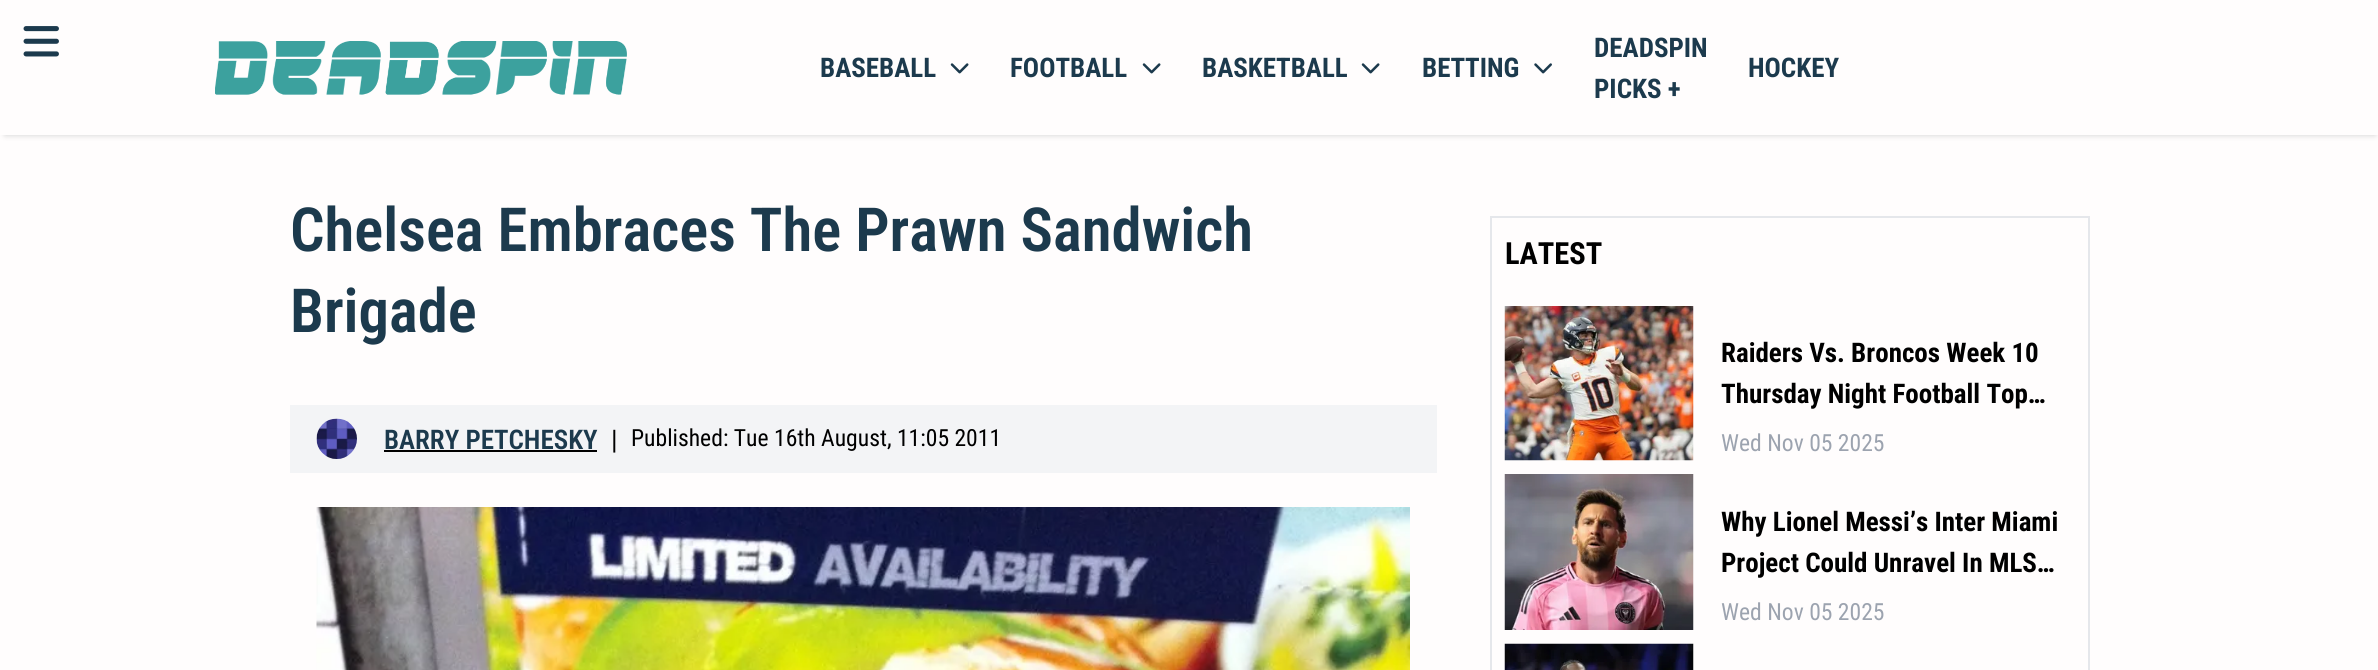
import math
import cairo

surface = cairo.ImageSurface(cairo.Format.RGB24, 2378, 670)
ctx = cairo.Context(surface)
options = cairo.FontOptions()
options.set_hint_metrics(cairo.HintMetrics.OFF)
options.set_hint_style(cairo.HintStyle.NONE)
ctx.set_font_options(options)
ctx.set_miter_limit(4)


def ink(r, g, b):
    ctx.set_source_rgb(r / 255, g / 255, b / 255)


def write(x, y, s, family, size, color, bold=False, italic=False):
    ctx.select_font_face(family, cairo.FontSlant.ITALIC if italic else cairo.FontSlant.NORMAL, cairo.FontWeight.BOLD if bold else cairo.FontWeight.NORMAL)
    ctx.set_font_size(size)
    ink(*color)
    ctx.move_to(x, y)
    ctx.show_text(s)


def block(x, y, w, h, *color):
    ink(*color)
    ctx.rectangle(x, y, w, h)
    ctx.fill()


def round_path(x, y, w, h, r):
    ctx.new_sub_path()
    for i, (u, v) in enumerate([(x + w - r, y + h - r), (x + r, y + h - r), (x + r, y + r), (x + w - r, y + r)]):
        ctx.arc(u, v, r, i * math.pi / 2, (i + 1) * math.pi / 2)
    ctx.close_path()


def blur_box(x, y, w, h, r, blur, alpha):
    ctx.push_group_with_content(cairo.Content.ALPHA)
    ctx.set_operator(cairo.Operator.SOURCE)
    for i in range(15, -16, -2):
        e = blur * i / 6
        if min(w, h) + 2 * e > 0:
            ctx.set_source_rgba(0, 0, 0, alpha * math.erfc((i - 1) / 8.5) / 2)
            round_path(x - e, y - e, w + 2 * e, h + 2 * e, max(0, min(r + e + blur * .6, min(w, h) / 2 + e)))
            ctx.fill()
    ctx.mask(ctx.pop_group())


def paste(path, x, y, w, h):
    ctx.save()
    ctx.set_source_surface(cairo.ImageSurface.create_from_png(path), x, y)
    ctx.rectangle(x, y, w, h)
    ctx.fill()
    ctx.restore()


s1 = dict(family="Roboto Condensed", size=27, color=(28, 58, 77), bold=True)
s2 = dict(family="Roboto Condensed SemiBold", size=60.75, color=(28, 58, 77))
s3 = dict(family="Roboto Condensed SemiBold", size=27, color=(28, 58, 77))
s4 = dict(family="Roboto Condensed", size=27, color=(0, 0, 0))
s5 = dict(family="Roboto Condensed", size=23.6, color=(0, 0, 0))
s6 = dict(family="Roboto Condensed", size=30.5, color=(0, 0, 0), bold=True)
s7 = dict(family="Roboto Condensed", size=27, color=(0, 0, 0), bold=True)
s8 = dict(family="Roboto Condensed", size=23.6, color=(156, 163, 175))

ink(255, 253, 253)
ctx.paint()
ctx.save()
ctx.rectangle(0, 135, 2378, 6)
ctx.clip()
ink(207, 207, 207)
blur_box(5, 9, 2370, 126, 0, 3, 1)
ctx.restore()
paste("pic1.png", 23, 26, 36, 31)
paste("pic2.png", 215, 41, 412, 54)
write(820, 77, "BASEBALL", **s1)
paste("pic3.png", 950, 63, 19, 11)
write(1010, 77, "FOOTBALL", **s1)
paste("pic3.png", 1142, 63, 19, 11)
write(1202, 77, "BASKETBALL", **s1)
paste("pic3.png", 1361, 63, 19, 11)
write(1422, 77, "BETTING", **s1)
paste("pic4.png", 1534, 63, 18, 11)
write(1594, 57, "DEADSPIN", **s1)
write(1594, 98, "PICKS +", **s1)
write(1748, 77, "HOCKEY", **s1)
write(290, 251, "Chelsea Embraces The Prawn Sandwich", **s2)
write(290, 332, "Brigade", **s2)
block(290, 405, 1147, 68, 243, 244, 246)
paste("pic5.png", 316, 418, 41, 41)
write(384, 449, "BARRY PETCHESKY", **s3)
block(384, 450, 213, 2, 0, 0, 0)
write(611, 449, "|", **s4)
write(631, 446, "Published: Tue 16th August, 11:05 2011", **s5)
paste("pic6.png", 316, 507, 1094, 163)
ctx.rectangle(1491, 217, 598, 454)
ink(229, 231, 235)
ctx.stroke()
write(1505, 264, "LATEST", **s6)
paste("pic7.png", 1504, 306, 190, 155)
write(1721, 362, "Raiders Vs. Broncos Week 10", **s7)
write(1721, 403, "Thursday Night Football Top…", **s7)
write(1721, 451, "Wed Nov 05 2025", **s8)
paste("pic8.png", 1504, 474, 190, 156)
write(1721, 531, "Why Lionel Messi’s Inter Miami", **s7)
write(1721, 572, "Project Could Unravel In MLS…", **s7)
write(1721, 620, "Wed Nov 05 2025", **s8)
paste("pic9.png", 1504, 643, 190, 27)
surface.write_to_png("screenshot.png")
